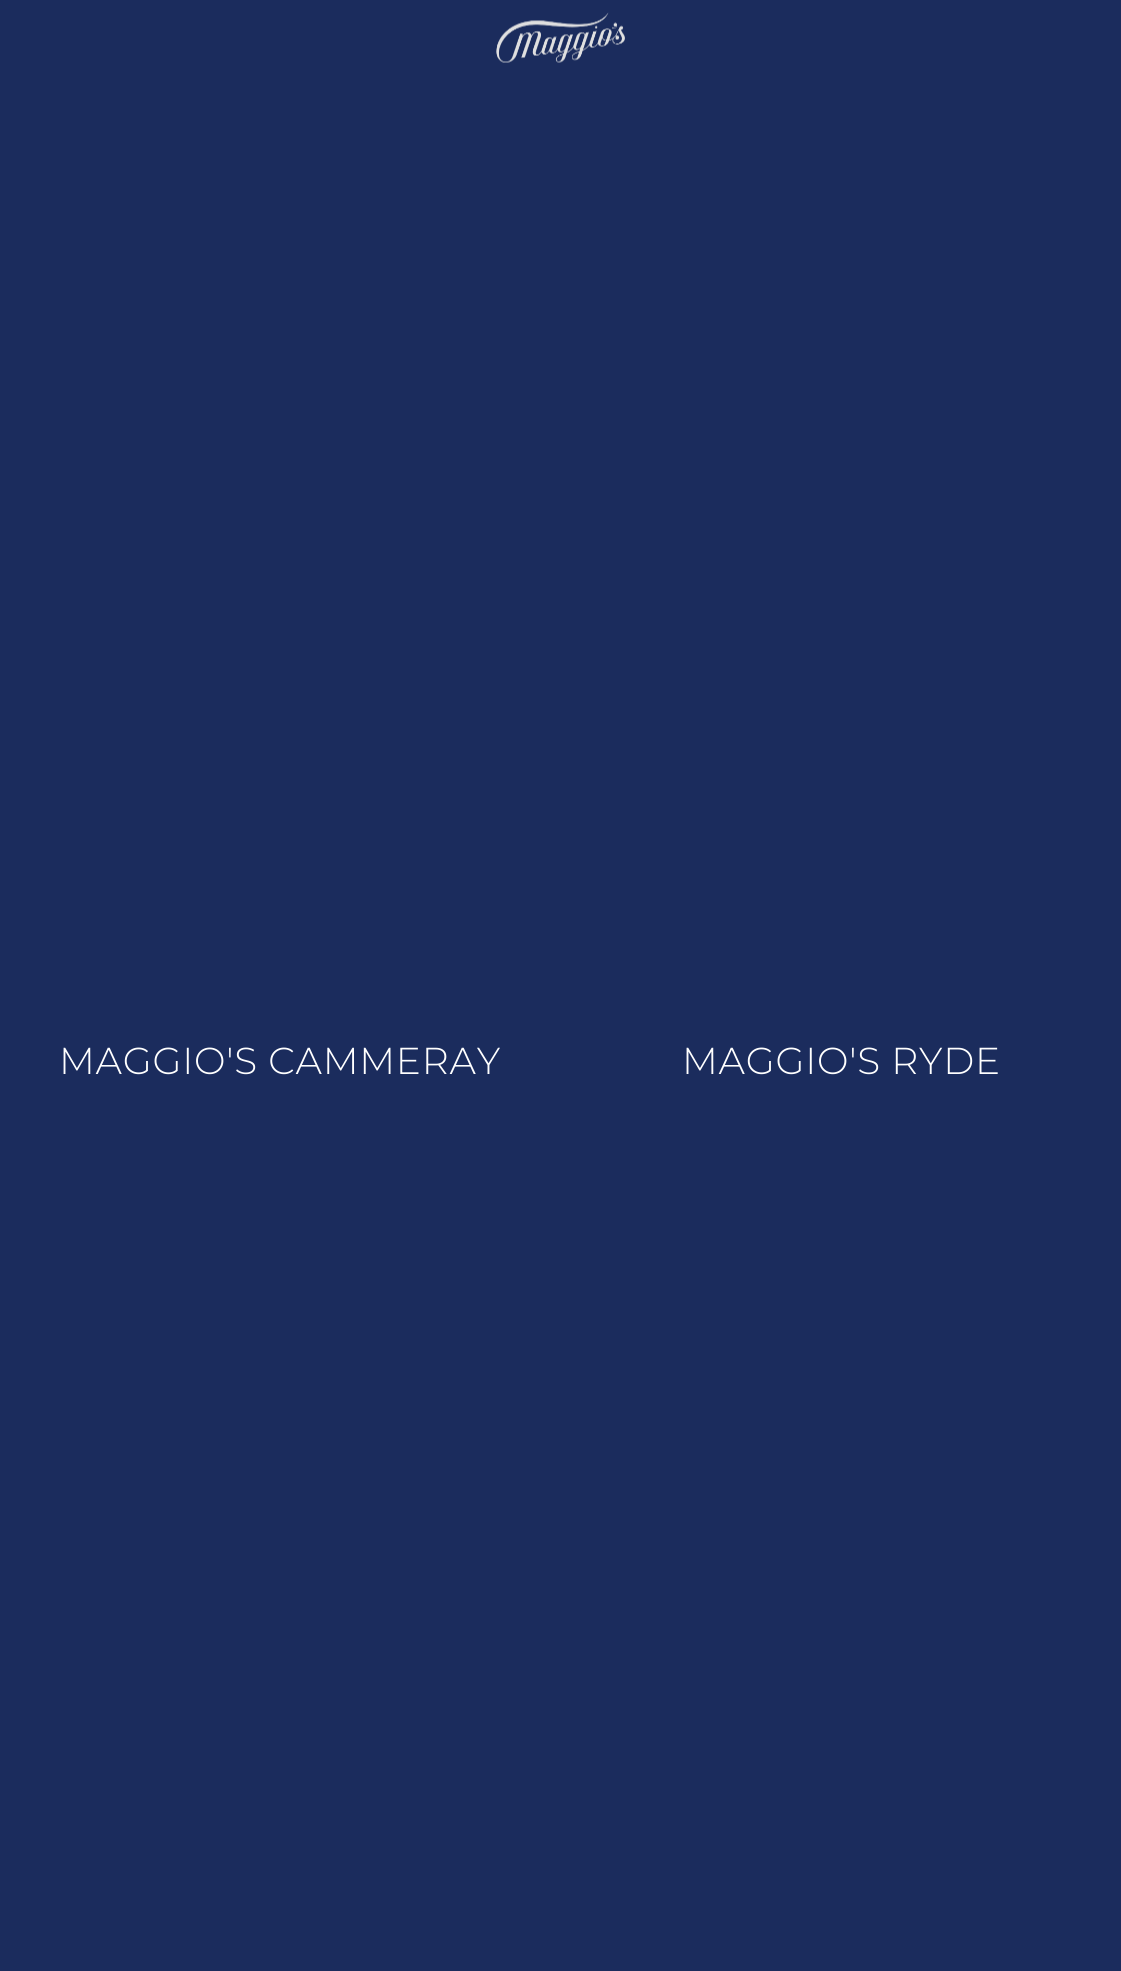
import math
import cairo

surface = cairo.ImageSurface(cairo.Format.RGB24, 1121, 1971)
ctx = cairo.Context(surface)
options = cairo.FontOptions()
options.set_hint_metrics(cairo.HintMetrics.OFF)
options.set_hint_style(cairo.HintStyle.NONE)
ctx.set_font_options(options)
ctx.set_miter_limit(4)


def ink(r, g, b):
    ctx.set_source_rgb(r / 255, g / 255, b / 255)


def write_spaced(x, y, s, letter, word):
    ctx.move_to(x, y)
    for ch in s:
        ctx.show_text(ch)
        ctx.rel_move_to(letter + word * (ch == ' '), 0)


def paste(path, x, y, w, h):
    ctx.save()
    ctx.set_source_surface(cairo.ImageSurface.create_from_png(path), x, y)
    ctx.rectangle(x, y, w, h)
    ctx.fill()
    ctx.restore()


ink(27, 44, 93)
ctx.paint()
paste("pic1.png", 496, 12, 129, 51)
ctx.select_font_face("Montserrat Light")
ctx.set_font_size(37.5)
ink(255, 255, 255)
write_spaced(59, 1074, "MAGGIO'S CAMMERAY", 0.75, 0)
write_spaced(682, 1074, "MAGGIO'S RYDE", 0.75, 0)
surface.write_to_png("screenshot.png")
